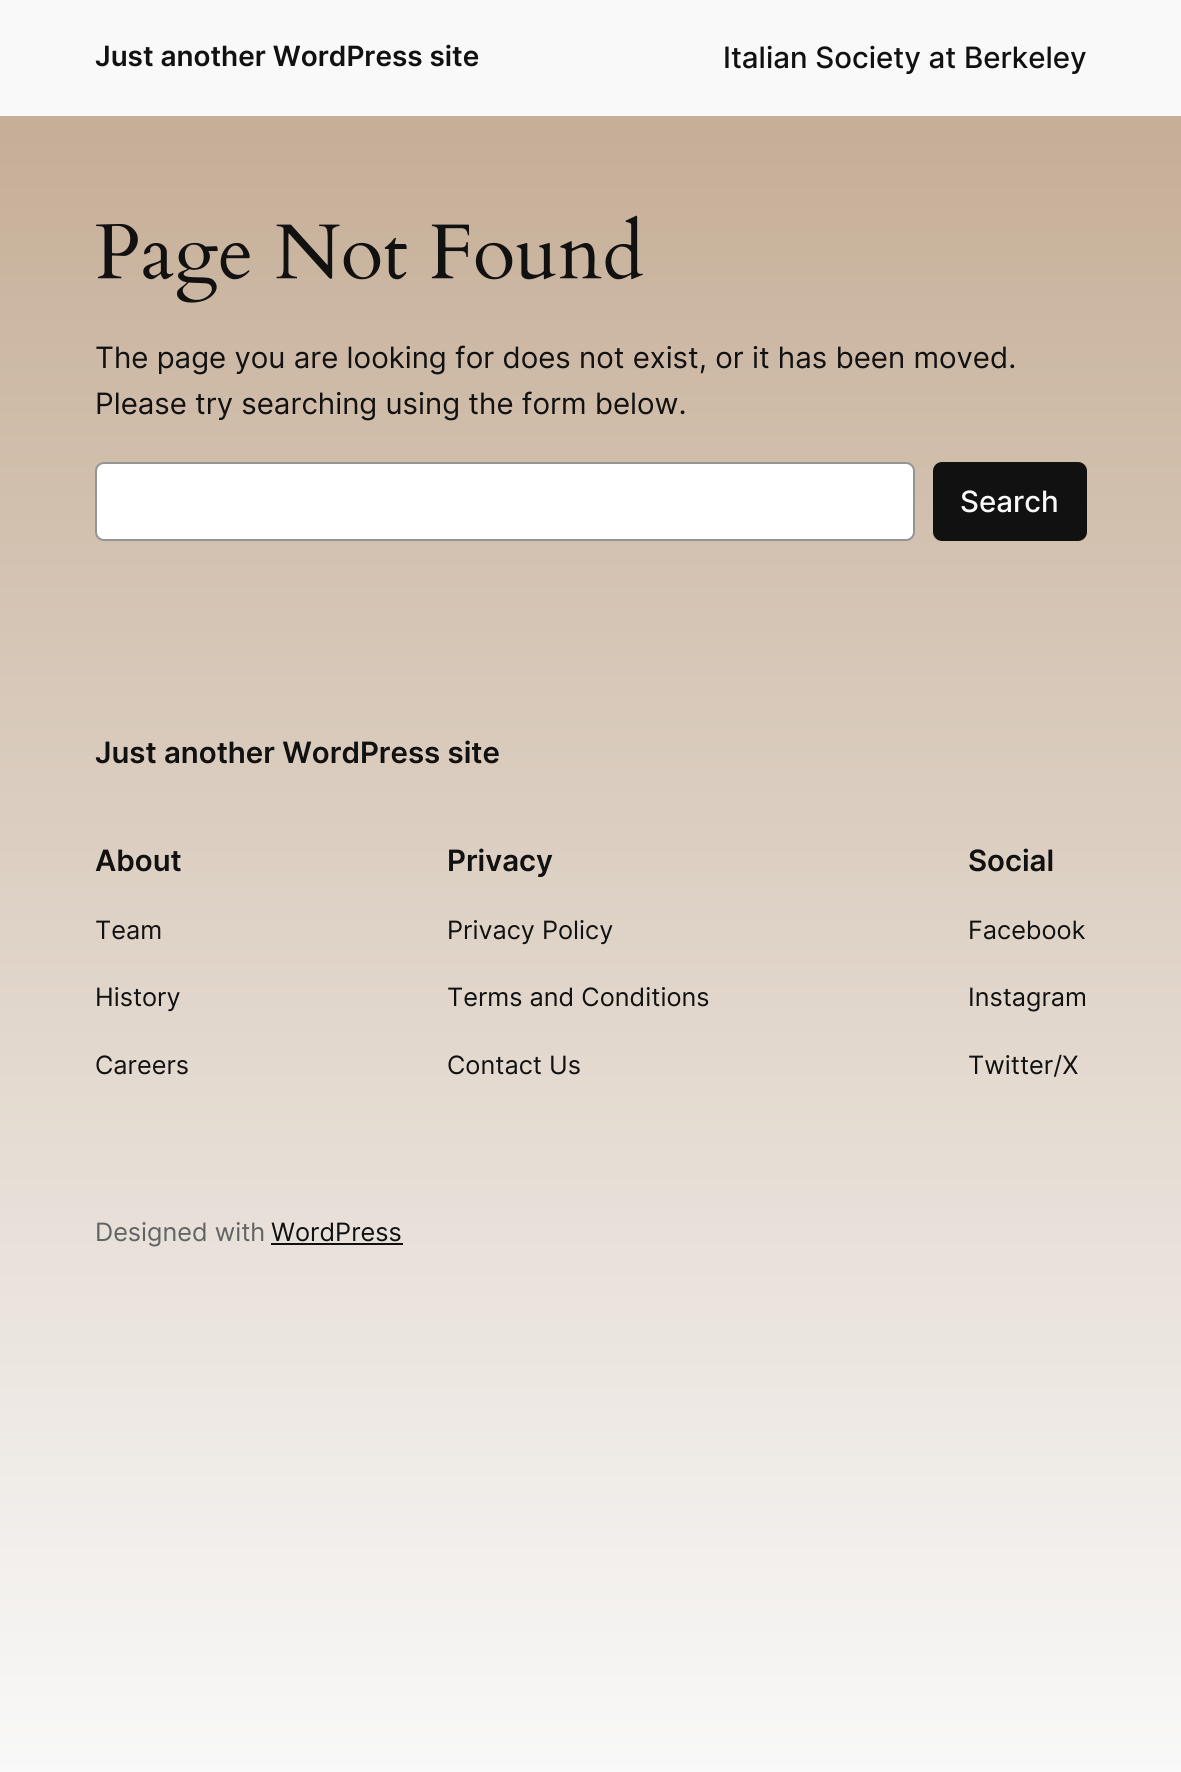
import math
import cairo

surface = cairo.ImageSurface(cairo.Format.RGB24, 1181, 1772)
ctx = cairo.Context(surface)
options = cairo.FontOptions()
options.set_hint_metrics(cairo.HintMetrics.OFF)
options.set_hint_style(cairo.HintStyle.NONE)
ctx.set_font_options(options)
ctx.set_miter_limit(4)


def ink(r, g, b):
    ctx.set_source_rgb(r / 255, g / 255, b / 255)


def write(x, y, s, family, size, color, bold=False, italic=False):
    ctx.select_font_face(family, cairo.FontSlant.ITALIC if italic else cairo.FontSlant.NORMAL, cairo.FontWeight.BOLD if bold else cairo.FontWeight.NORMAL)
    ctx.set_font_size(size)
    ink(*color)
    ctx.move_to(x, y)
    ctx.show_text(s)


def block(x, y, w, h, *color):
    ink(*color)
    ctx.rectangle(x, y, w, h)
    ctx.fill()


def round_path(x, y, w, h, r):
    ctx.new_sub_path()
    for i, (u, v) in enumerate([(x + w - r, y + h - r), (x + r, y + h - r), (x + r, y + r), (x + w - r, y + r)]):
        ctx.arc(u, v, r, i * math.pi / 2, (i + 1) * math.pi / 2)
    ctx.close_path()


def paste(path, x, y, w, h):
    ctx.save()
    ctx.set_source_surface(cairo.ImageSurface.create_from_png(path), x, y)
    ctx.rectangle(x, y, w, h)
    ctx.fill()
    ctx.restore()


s1 = dict(family="Inter SemiBold", size=27.9, color=(17, 17, 17))
s2 = dict(family="Inter Medium", size=29.4, color=(17, 17, 17))
s3 = dict(family="Inter", size=29.4, color=(17, 17, 17))
s4 = dict(family="Inter Medium", size=29.4, color=(249, 249, 249))
s5 = dict(family="Inter SemiBold", size=29.4, color=(17, 17, 17))
s6 = dict(family="Inter", size=25.25, color=(17, 17, 17))
s7 = dict(family="Inter", size=25.25, color=(99, 99, 99))

ink(255, 255, 255)
ctx.paint()
gradient = cairo.LinearGradient(591, 0, 591, 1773)
gradient.add_color_stop_rgba(0, 0.761, 0.663, 0.565, 1)
gradient.add_color_stop_rgba(1, 0.976, 0.976, 0.976, 1)
ctx.set_source(gradient)
ctx.rectangle(0, 116, 1181, 1656)
ctx.fill()
block(0, 0, 1181, 116, 249, 249, 249)
write(95, 66, "Just another WordPress site", **s1)
write(723, 68, "Italian Society at Berkeley", **s2)
paste("pic1.png", 96, 215, 547, 88)
write(95, 368, "The page you are looking for does not exist, or it has been moved.", **s3)
write(95, 414, "Please try searching using the form below.", **s3)
ink(255, 255, 255)
round_path(96, 463, 818, 77, 8)
ctx.fill_preserve()
ink(148, 148, 148)
ctx.stroke()
ink(17, 17, 17)
round_path(933, 462, 154, 79, 9)
ctx.fill()
write(960, 512, "Search", **s4)
write(95, 763, "Just another WordPress site", **s5)
write(95, 871, "About", **s5)
write(95, 939, "Team", **s6)
write(95, 1006, "History", **s6)
write(95, 1074, "Careers", **s6)
write(447, 871, "Privacy", **s5)
write(447, 939, "Privacy Policy", **s6)
write(447, 1006, "Terms and Conditions", **s6)
write(447, 1074, "Contact Us", **s6)
write(968, 871, "Social", **s5)
write(968, 939, "Facebook", **s6)
write(968, 1006, "Instagram", **s6)
write(968, 1074, "Twitter/X", **s6)
write(95, 1241, "Designed with", **s7)
write(271, 1241, "WordPress", **s6)
block(271, 1243, 132, 2, 17, 17, 17)
surface.write_to_png("screenshot.png")
